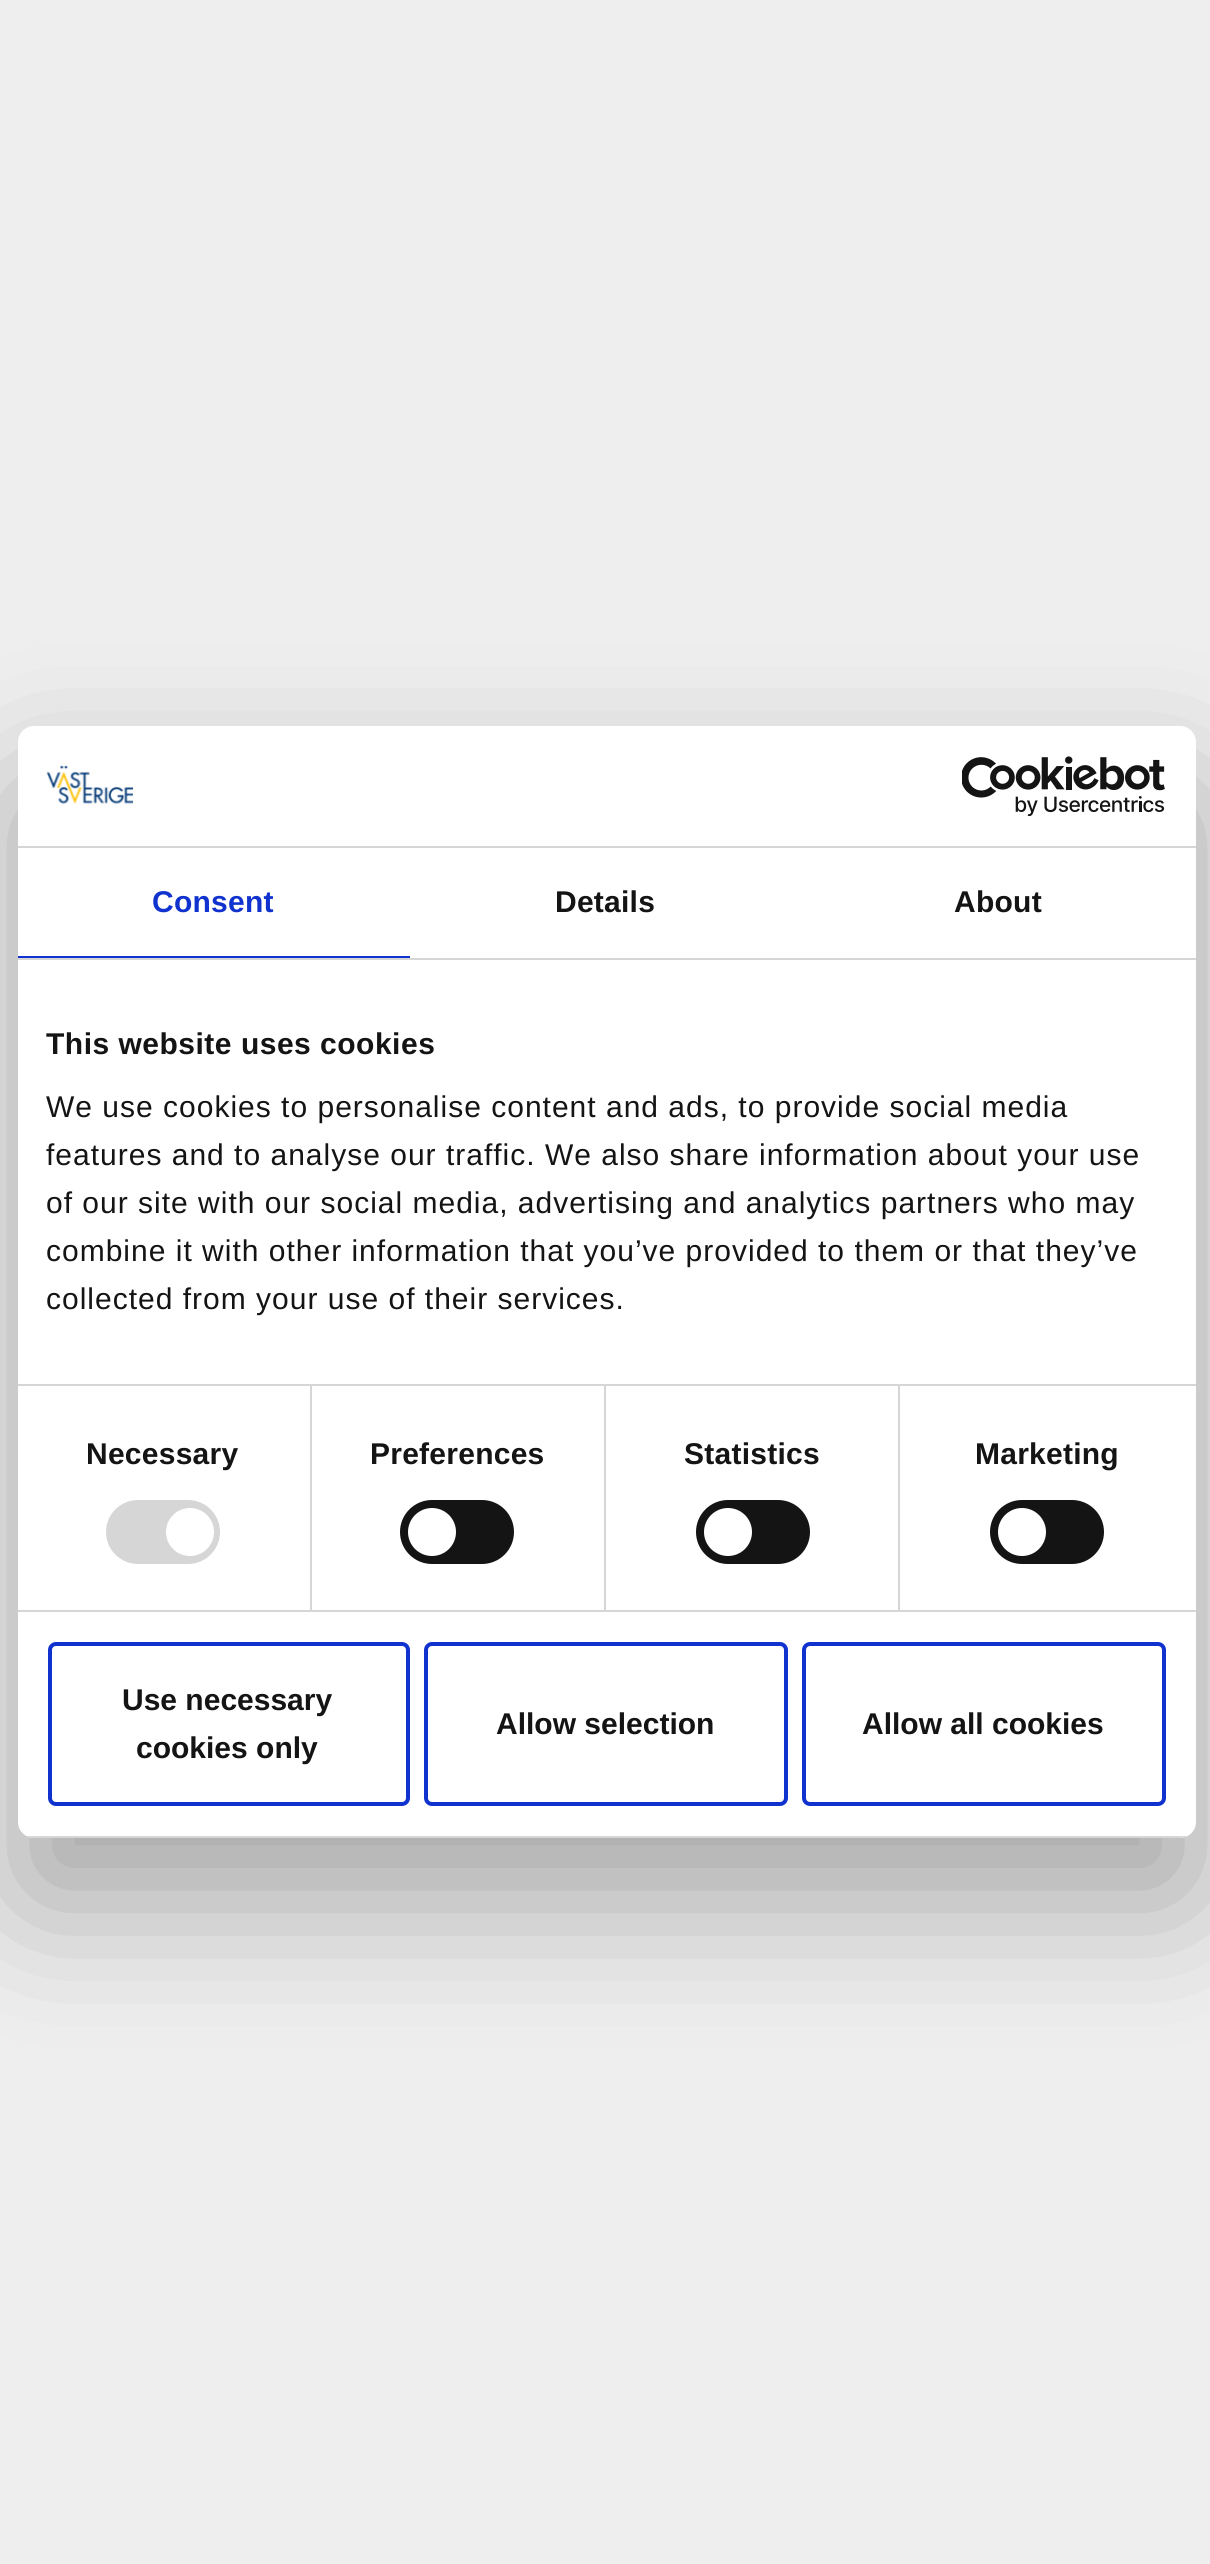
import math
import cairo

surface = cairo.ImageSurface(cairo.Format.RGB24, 1210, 2564)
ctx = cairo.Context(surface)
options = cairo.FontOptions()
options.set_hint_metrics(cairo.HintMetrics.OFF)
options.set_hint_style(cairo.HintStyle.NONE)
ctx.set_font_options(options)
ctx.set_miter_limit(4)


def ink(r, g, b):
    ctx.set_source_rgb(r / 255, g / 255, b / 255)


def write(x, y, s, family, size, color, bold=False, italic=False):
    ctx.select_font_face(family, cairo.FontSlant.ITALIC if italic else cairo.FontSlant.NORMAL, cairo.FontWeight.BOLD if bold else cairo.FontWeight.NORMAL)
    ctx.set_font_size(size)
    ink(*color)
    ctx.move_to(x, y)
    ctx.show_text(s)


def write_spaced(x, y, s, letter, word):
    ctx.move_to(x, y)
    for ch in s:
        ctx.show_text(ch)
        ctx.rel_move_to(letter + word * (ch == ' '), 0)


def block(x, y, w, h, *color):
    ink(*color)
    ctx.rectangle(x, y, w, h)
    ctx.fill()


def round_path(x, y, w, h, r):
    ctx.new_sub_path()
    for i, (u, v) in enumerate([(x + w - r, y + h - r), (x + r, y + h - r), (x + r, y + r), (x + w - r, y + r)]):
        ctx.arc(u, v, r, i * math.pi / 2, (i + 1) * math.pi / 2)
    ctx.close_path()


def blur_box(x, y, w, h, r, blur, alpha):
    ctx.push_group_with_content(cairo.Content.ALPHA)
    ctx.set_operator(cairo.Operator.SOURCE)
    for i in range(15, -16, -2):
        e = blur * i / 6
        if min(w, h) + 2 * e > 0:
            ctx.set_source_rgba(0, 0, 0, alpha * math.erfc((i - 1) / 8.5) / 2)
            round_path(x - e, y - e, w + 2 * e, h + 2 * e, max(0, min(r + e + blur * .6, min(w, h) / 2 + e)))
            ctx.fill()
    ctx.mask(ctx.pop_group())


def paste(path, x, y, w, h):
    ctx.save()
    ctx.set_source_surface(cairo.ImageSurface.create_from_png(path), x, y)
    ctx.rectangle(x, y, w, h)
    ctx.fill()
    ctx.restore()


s1 = dict(family="Liberation Sans", size=30, color=(20, 20, 20), bold=True)

ink(238, 238, 238)
ctx.paint()
ink(0, 0, 0)
blur_box(18, 790, 1178, 1112, 16, 68, 0.3)
ink(255, 255, 255)
round_path(18, 726, 1178, 1112, 16)
ctx.fill()
block(18, 846, 1178, 2, 214, 214, 214)
paste("pic1.png", 46, 765, 87, 40)
paste("pic2.png", 962, 756, 203, 60)
block(18, 958, 1178, 2, 214, 214, 214)
block(18, 956, 392, 2, 16, 50, 207)
ctx.select_font_face("Liberation Sans", cairo.FontSlant.NORMAL, cairo.FontWeight.BOLD)
ctx.set_font_size(30)
write_spaced(152, 912, "Consent", 0.25, 0)
ink(20, 20, 20)
write_spaced(555, 912, "Details", 0.25, 0)
write_spaced(954, 912, "About", 0.25, 0)
block(18, 1384, 1178, 2, 214, 214, 214)
ink(20, 20, 20)
write_spaced(46, 1054, "This website uses cookies", 0.5, 0)
ctx.select_font_face("Liberation Sans")
write_spaced(46, 1117, "We use cookies to personalise content and ads, to provide social media", 1, 0)
write_spaced(46, 1165, "features and to analyse our traffic. We also share information about your use", 1, 0)
write_spaced(46, 1213, "of our site with our social media, advertising and analytics partners who may", 1, 0)
write_spaced(46, 1261, "combine it with other information that you’ve provided to them or that they’ve", 1, 0)
write_spaced(46, 1309, "collected from your use of their services.", 1, 0)
block(18, 1610, 1178, 2, 214, 214, 214)
block(310, 1386, 2, 224, 214, 214, 214)
ctx.select_font_face("Liberation Sans", cairo.FontSlant.NORMAL, cairo.FontWeight.BOLD)
ink(20, 20, 20)
write_spaced(86, 1464, "Necessary", 0.25, 0)
ink(214, 214, 214)
round_path(106, 1500, 114, 64, 32)
ctx.fill()
ink(255, 255, 255)
ctx.arc(190, 1532, 24, 0, 2 * math.pi)
ctx.fill()
block(604, 1386, 2, 224, 214, 214, 214)
ink(20, 20, 20)
write_spaced(370, 1464, "Preferences", 0.25, 0)
round_path(400, 1500, 114, 64, 32)
ctx.fill()
ink(255, 255, 255)
ctx.arc(432, 1532, 24, 0, 2 * math.pi)
ctx.fill()
block(898, 1386, 2, 224, 214, 214, 214)
ink(20, 20, 20)
write_spaced(684, 1464, "Statistics", 0.25, 0)
round_path(696, 1500, 114, 64, 32)
ctx.fill()
ink(255, 255, 255)
ctx.arc(728, 1532, 24, 0, 2 * math.pi)
ctx.fill()
ink(20, 20, 20)
write_spaced(975, 1464, "Marketing", 0.25, 0)
round_path(990, 1500, 114, 64, 32)
ctx.fill()
ink(255, 255, 255)
ctx.arc(1022, 1532, 24, 0, 2 * math.pi)
ctx.fill()
ctx.save()
round_path(18, 726, 1178, 1112, 16)
ctx.clip()
block(18, 1836, 1178, 2, 214, 214, 214)
ctx.restore()
round_path(50, 1644, 358, 160, 6)
ink(16, 50, 207)
ctx.set_line_width(4)
ctx.stroke()
write(122, 1710, "Use necessary", **s1)
write(136, 1758, "cookies only", **s1)
round_path(426, 1644, 360, 160, 6)
ink(16, 50, 207)
ctx.stroke()
write(496, 1734, "Allow selection", **s1)
round_path(804, 1644, 360, 160, 6)
ink(16, 50, 207)
ctx.stroke()
write(862, 1734, "Allow all cookies", **s1)
surface.write_to_png("screenshot.png")
